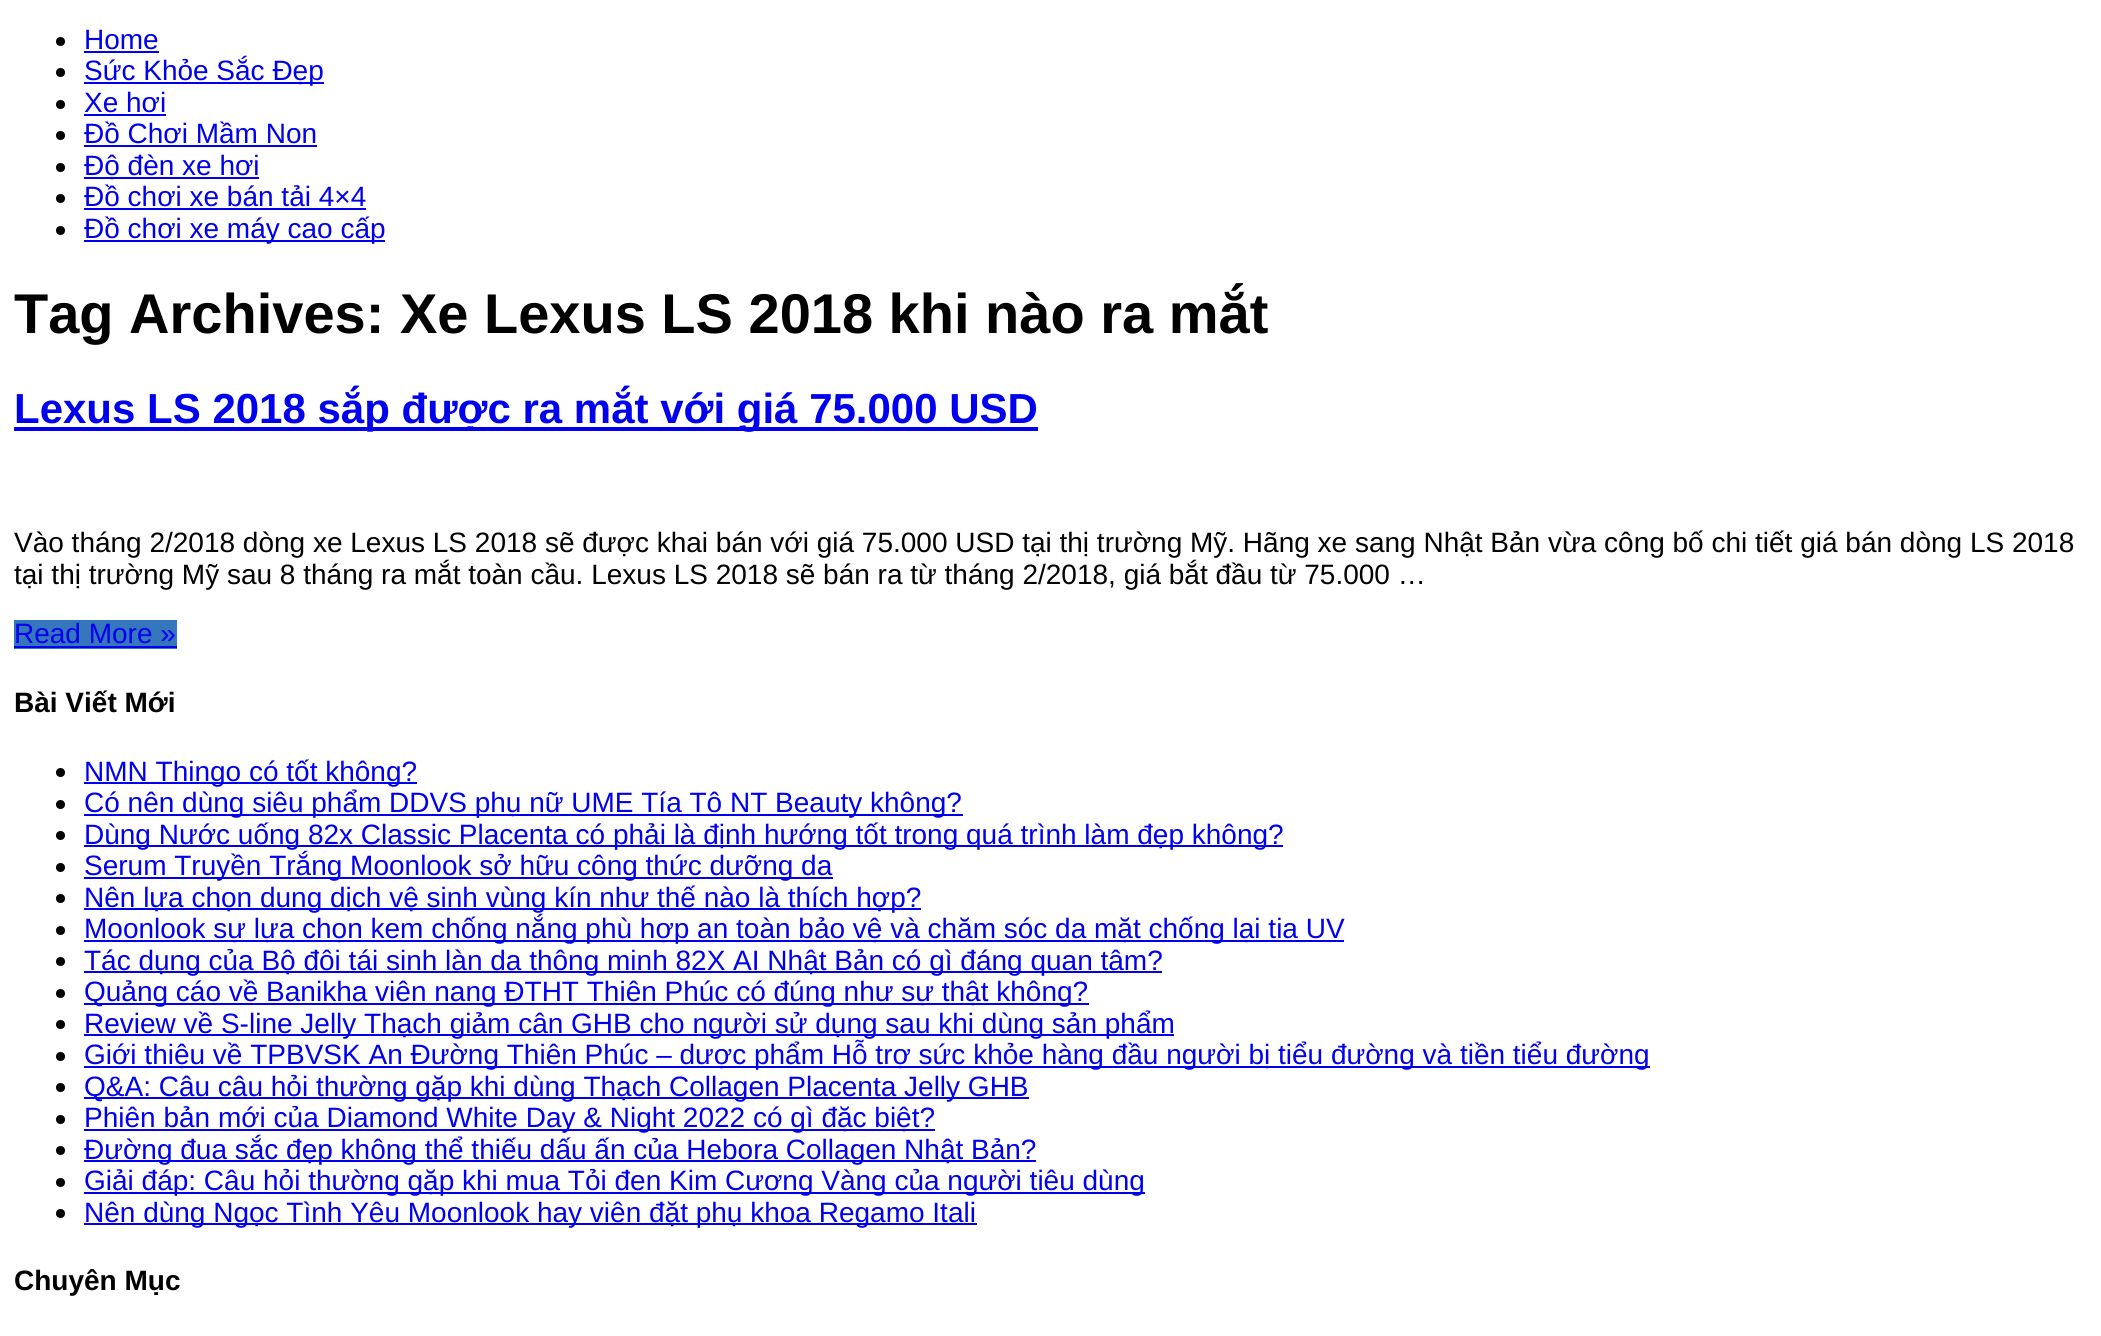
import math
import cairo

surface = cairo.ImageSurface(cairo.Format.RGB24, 2101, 1336)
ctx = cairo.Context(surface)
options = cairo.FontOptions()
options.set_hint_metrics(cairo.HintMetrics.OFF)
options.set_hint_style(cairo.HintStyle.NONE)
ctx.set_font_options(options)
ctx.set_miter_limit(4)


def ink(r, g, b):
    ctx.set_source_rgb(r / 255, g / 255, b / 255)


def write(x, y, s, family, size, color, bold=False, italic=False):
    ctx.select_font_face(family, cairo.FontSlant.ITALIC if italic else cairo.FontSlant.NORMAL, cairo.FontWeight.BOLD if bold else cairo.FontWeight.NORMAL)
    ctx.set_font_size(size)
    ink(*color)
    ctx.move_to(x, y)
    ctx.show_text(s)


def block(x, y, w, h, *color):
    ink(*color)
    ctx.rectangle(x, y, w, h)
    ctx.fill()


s1 = dict(family="Liberation Sans", size=28, color=(0, 0, 238))
s2 = dict(family="Liberation Sans", size=56, color=(0, 0, 0), bold=True)
s3 = dict(family="Liberation Sans", size=42, color=(0, 0, 238), bold=True)
s4 = dict(family="Liberation Sans", size=28, color=(0, 0, 0))
s5 = dict(family="Liberation Sans", size=28, color=(0, 0, 0), bold=True)

ink(255, 255, 255)
ctx.paint()
ink(0, 0, 0)
ctx.arc(60.5, 41.5, 4.5, 0, 2 * math.pi)
ctx.fill()
write(84, 49, "Home", **s1)
block(84, 51, 75, 2, 0, 0, 238)
ink(0, 0, 0)
ctx.new_path()
ctx.arc(60.5, 72.5, 4.5, 0, 2 * math.pi)
ctx.fill()
block(84, 82, 240, 2, 0, 0, 238)
write(84, 80, "Sức Khỏe Sắc Đẹp", **s1)
ink(0, 0, 0)
ctx.new_path()
ctx.arc(60.5, 104.5, 4.5, 0, 2 * math.pi)
ctx.fill()
write(84, 112, "Xe hơi", **s1)
block(84, 114, 82, 2, 0, 0, 238)
ink(0, 0, 0)
ctx.new_path()
ctx.arc(60.5, 135.5, 4.5, 0, 2 * math.pi)
ctx.fill()
write(84, 143, "Đồ Chơi Mầm Non", **s1)
block(84, 145, 233, 2, 0, 0, 238)
ink(0, 0, 0)
ctx.new_path()
ctx.arc(60.5, 167.5, 4.5, 0, 2 * math.pi)
ctx.fill()
block(84, 177, 175, 2, 0, 0, 238)
write(84, 175, "Độ đèn xe hơi", **s1)
ink(0, 0, 0)
ctx.new_path()
ctx.arc(60.5, 198.5, 4.5, 0, 2 * math.pi)
ctx.fill()
write(84, 206, "Đồ chơi xe bán tải 4×4", **s1)
block(84, 208, 282, 2, 0, 0, 238)
ink(0, 0, 0)
ctx.new_path()
ctx.arc(60.5, 230.5, 4.5, 0, 2 * math.pi)
ctx.fill()
block(84, 240, 301, 2, 0, 0, 238)
write(84, 238, "Đồ chơi xe máy cao cấp", **s1)
write(14, 333, "Tag Archives: Xe Lexus LS 2018 khi nào ra mắt", **s2)
block(14, 427, 1024, 4, 0, 0, 238)
write(14, 423, "Lexus LS 2018 sắp được ra mắt với giá 75.000 USD", **s3)
write(14, 552, "Vào tháng 2/2018 dòng xe Lexus LS 2018 sẽ được khai bán với giá 75.000 USD tại thị trường Mỹ. Hãng xe sang Nhật Bản vừa công bố chi tiết giá bán dòng LS 2018", **s4)
write(14, 584, "tại thị trường Mỹ sau 8 tháng ra mắt toàn cầu. Lexus LS 2018 sẽ bán ra từ tháng 2/2018, giá bắt đầu từ 75.000 …", **s4)
block(14, 620, 163, 29, 53, 119, 188)
write(14, 643, "Read More »", **s1)
block(14, 646, 163, 2, 0, 0, 238)
write(14, 712, "Bài Viết Mới", **s5)
ctx.new_path()
ctx.arc(60.5, 772.5, 4.5, 0, 2 * math.pi)
ctx.fill()
block(84, 782, 333, 2, 0, 0, 238)
write(84, 781, "NMN Thingo có tốt không?", **s1)
ink(0, 0, 0)
ctx.new_path()
ctx.arc(60.5, 804.5, 4.5, 0, 2 * math.pi)
ctx.fill()
block(84, 814, 879, 2, 0, 0, 238)
write(84, 812, "Có nên dùng siêu phẩm DDVS phụ nữ UME Tía Tô NT Beauty không?", **s1)
ink(0, 0, 0)
ctx.new_path()
ctx.arc(60.5, 835.5, 4.5, 0, 2 * math.pi)
ctx.fill()
block(84, 845, 1199, 2, 0, 0, 238)
write(84, 844, "Dùng Nước uống 82x Classic Placenta có phải là định hướng tốt trong quá trình làm đẹp không?", **s1)
ink(0, 0, 0)
ctx.new_path()
ctx.arc(60.5, 867.5, 4.5, 0, 2 * math.pi)
ctx.fill()
block(84, 877, 749, 2, 0, 0, 238)
write(84, 875, "Serum Truyền Trắng Moonlook sở hữu công thức dưỡng da", **s1)
ink(0, 0, 0)
ctx.new_path()
ctx.arc(60.5, 898.5, 4.5, 0, 2 * math.pi)
ctx.fill()
block(84, 908, 837, 2, 0, 0, 238)
write(84, 907, "Nên lựa chọn dung dịch vệ sinh vùng kín như thế nào là thích hợp?", **s1)
ink(0, 0, 0)
ctx.new_path()
ctx.arc(60.5, 930.5, 4.5, 0, 2 * math.pi)
ctx.fill()
block(84, 940, 1260, 2, 0, 0, 238)
write(84, 938, "Moonlook sự lựa chọn kem chống nắng phù hợp an toàn bảo vệ và chăm sóc da mặt chống lại tia UV", **s1)
ink(0, 0, 0)
ctx.new_path()
ctx.arc(60.5, 961.5, 4.5, 0, 2 * math.pi)
ctx.fill()
block(84, 971, 1078, 2, 0, 0, 238)
write(84, 970, "Tác dụng của Bộ đôi tái sinh làn da thông minh 82X AI Nhật Bản có gì đáng quan tâm?", **s1)
ink(0, 0, 0)
ctx.new_path()
ctx.arc(60.5, 993.5, 4.5, 0, 2 * math.pi)
ctx.fill()
block(84, 1003, 1005, 2, 0, 0, 238)
write(84, 1001, "Quảng cáo về Banikha viên nang ĐTHT Thiên Phúc có đúng như sự thật không?", **s1)
ink(0, 0, 0)
ctx.new_path()
ctx.arc(60.5, 1024.5, 4.5, 0, 2 * math.pi)
ctx.fill()
block(84, 1034, 1090, 2, 0, 0, 238)
write(84, 1033, "Review về S-line Jelly Thạch giảm cân GHB cho người sử dụng sau khi dùng sản phẩm", **s1)
ink(0, 0, 0)
ctx.new_path()
ctx.arc(60.5, 1056.5, 4.5, 0, 2 * math.pi)
ctx.fill()
block(84, 1066, 1566, 2, 0, 0, 238)
write(84, 1064, "Giới thiệu về TPBVSK An Đường Thiên Phúc – dược phẩm Hỗ trợ sức khỏe hàng đầu người bị tiểu đường và tiền tiểu đường", **s1)
ink(0, 0, 0)
ctx.new_path()
ctx.arc(60.5, 1087.5, 4.5, 0, 2 * math.pi)
ctx.fill()
block(84, 1097, 945, 2, 0, 0, 238)
write(84, 1096, "Q&A: Câu câu hỏi thường gặp khi dùng Thạch Collagen Placenta Jelly GHB", **s1)
ink(0, 0, 0)
ctx.new_path()
ctx.arc(60.5, 1119.5, 4.5, 0, 2 * math.pi)
ctx.fill()
block(84, 1129, 851, 2, 0, 0, 238)
write(84, 1127, "Phiên bản mới của Diamond White Day & Night 2022 có gì đặc biệt?", **s1)
ink(0, 0, 0)
ctx.new_path()
ctx.arc(60.5, 1150.5, 4.5, 0, 2 * math.pi)
ctx.fill()
block(84, 1160, 952, 2, 0, 0, 238)
write(84, 1159, "Đường đua sắc đẹp không thể thiếu dấu ấn của Hebora Collagen Nhật Bản?", **s1)
ink(0, 0, 0)
ctx.new_path()
ctx.arc(60.5, 1182.5, 4.5, 0, 2 * math.pi)
ctx.fill()
block(84, 1192, 1061, 2, 0, 0, 238)
write(84, 1190, "Giải đáp: Câu hỏi thường gặp khi mua Tỏi đen Kim Cương Vàng của người tiêu dùng", **s1)
ink(0, 0, 0)
ctx.new_path()
ctx.arc(60.5, 1213.5, 4.5, 0, 2 * math.pi)
ctx.fill()
block(84, 1223, 893, 2, 0, 0, 238)
write(84, 1222, "Nên dùng Ngọc Tình Yêu Moonlook hay viên đặt phụ khoa Regamo Itali", **s1)
write(14, 1290, "Chuyên Mục", **s5)
surface.write_to_png("screenshot.png")
